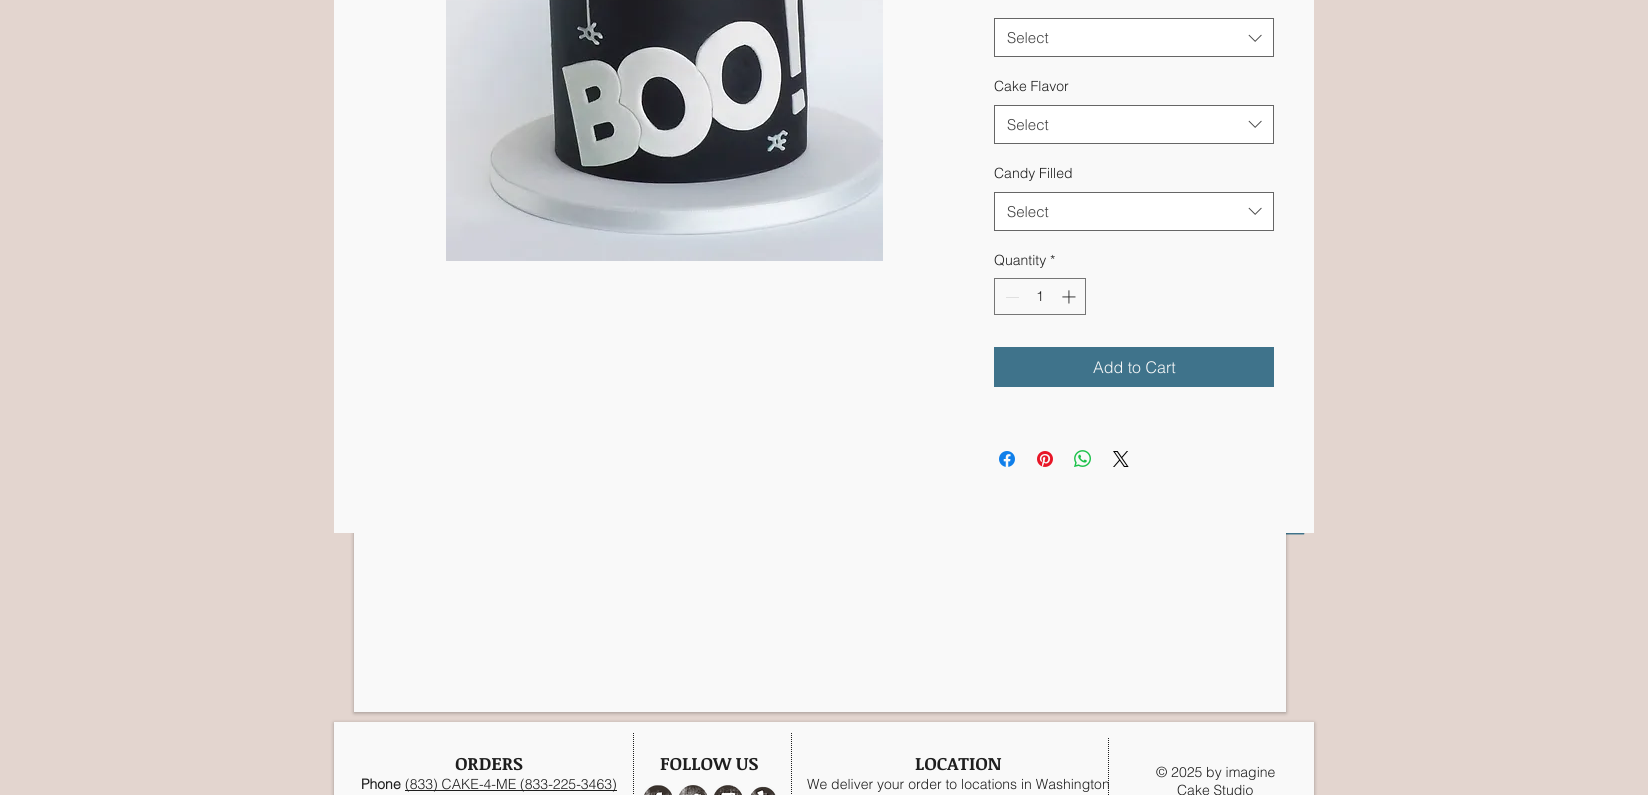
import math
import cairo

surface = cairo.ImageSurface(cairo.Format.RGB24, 1648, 795)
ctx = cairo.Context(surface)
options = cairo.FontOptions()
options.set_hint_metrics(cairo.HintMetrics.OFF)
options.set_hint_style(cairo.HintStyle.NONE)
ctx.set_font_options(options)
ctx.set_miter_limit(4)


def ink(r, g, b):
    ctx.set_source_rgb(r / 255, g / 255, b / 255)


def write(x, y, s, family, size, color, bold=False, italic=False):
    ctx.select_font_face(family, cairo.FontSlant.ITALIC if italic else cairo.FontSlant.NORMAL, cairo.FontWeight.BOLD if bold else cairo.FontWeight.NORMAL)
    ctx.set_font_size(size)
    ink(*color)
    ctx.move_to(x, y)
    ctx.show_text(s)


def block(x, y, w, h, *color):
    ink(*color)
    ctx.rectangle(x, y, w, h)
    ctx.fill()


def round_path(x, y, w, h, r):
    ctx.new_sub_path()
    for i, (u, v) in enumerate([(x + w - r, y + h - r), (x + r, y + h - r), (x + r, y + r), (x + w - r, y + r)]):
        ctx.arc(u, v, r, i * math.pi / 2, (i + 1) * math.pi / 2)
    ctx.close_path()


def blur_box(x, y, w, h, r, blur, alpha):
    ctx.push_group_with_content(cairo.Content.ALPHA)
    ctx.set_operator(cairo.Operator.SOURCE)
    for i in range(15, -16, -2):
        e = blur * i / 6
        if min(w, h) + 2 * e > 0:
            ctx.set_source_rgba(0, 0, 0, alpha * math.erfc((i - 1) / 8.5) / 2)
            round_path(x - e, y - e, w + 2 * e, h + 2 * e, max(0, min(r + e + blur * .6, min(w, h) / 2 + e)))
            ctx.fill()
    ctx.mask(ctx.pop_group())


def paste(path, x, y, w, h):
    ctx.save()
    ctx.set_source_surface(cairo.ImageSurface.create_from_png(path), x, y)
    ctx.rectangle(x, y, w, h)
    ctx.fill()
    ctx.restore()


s1 = dict(family="helvetica Light", size=15, color=(68, 68, 68))
s2 = dict(family="helvetica Light", size=14, color=(30, 30, 30))
s3 = dict(family="helvetica Light", size=16, color=(249, 249, 249))
s4 = dict(family="Noticia Text", size=18, color=(30, 30, 30), bold=True)
s5 = dict(family="helvetica", size=14, color=(30, 30, 30), bold=True)

ink(227, 213, 207)
ctx.paint()
paste("pic8.png", 1286, 533, 19, 2)
ink(0, 0, 0)
blur_box(354, -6, 932, 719, 0, 2, 0.3)
block(354, 533, 932, 179, 249, 249, 249)
block(334, 0, 980, 533, 249, 249, 249)
paste("pic1.png", 446, 0, 437, 261)
ink(255, 255, 255)
ctx.rectangle(994.5, 18.5, 279, 38)
ctx.fill_preserve()
ink(102, 102, 102)
ctx.set_line_width(1)
ctx.stroke()
write(1007, 43, "Select", **s1)
paste("pic2.png", 1248, 34, 14, 8)
write(994, 91, "Cake Flavor", **s2)
ink(255, 255, 255)
ctx.rectangle(994.5, 105.5, 279, 38)
ctx.fill_preserve()
ink(102, 102, 102)
ctx.stroke()
write(1007, 130, "Select", **s1)
paste("pic2.png", 1248, 120, 14, 8)
write(994, 178, "Candy Filled", **s2)
ink(255, 255, 255)
ctx.rectangle(994.5, 192.5, 279, 38)
ctx.fill_preserve()
ink(102, 102, 102)
ctx.stroke()
write(1007, 217, "Select", **s1)
paste("pic2.png", 1248, 207, 14, 8)
write(994, 265, "Quantity *", **s2)
ctx.rectangle(994.5, 278.5, 91, 36)
ink(118, 118, 118)
ctx.stroke()
block(1006, 297, 13, 1, 224, 224, 224)
write(1036, 301, "1", **s2)
paste("pic3.png", 1062, 290, 14, 14)
block(994, 347, 280, 40, 63, 115, 139)
write(1093, 373, "Add to Cart", **s3)
paste("pic4.png", 999, 451, 16, 16)
paste("pic5.png", 1037, 451, 16, 16)
paste("pic6.png", 1074, 450, 17, 17)
paste("pic7.png", 1113, 451, 16, 16)
ink(0, 0, 0)
blur_box(334, 723, 980, 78, 0, 2, 0.3)
block(334, 722, 980, 73, 249, 249, 249)
write(455, 770, "ORDERS", **s4)
write(361, 789, "Phone", **s5)
block(405, 790, 212, 1, 30, 30, 30)
write(405, 789, "(833) CAKE-4-ME (833-225-3463)", **s2)
ctx.new_path()
ctx.move_to(633.5, 733)
ctx.line_to(633.5, 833)
ctx.set_dash([1, 1])
ctx.stroke()
write(660, 770, "FOLLOW US", **s4)
ctx.new_path()
ctx.move_to(791.5, 733)
ctx.line_to(791.5, 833)
ctx.stroke()
ctx.new_path()
ctx.move_to(1108.5, 738)
ctx.line_to(1108.5, 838)
ctx.stroke()
paste("pic9.png", 644, 785, 28, 10)
paste("pic10.png", 679, 785, 28, 10)
paste("pic11.png", 714, 785, 28, 10)
paste("pic12.png", 750, 786, 26, 9)
write(915, 770, "LOCATION", **s4)
write(807, 789, "We deliver your order to locations in Washington", **s2)
write(1156, 777, "© 2025 by imagine", **s2)
write(1177, 795, "Cake Studio", **s2)
surface.write_to_png("screenshot.png")
